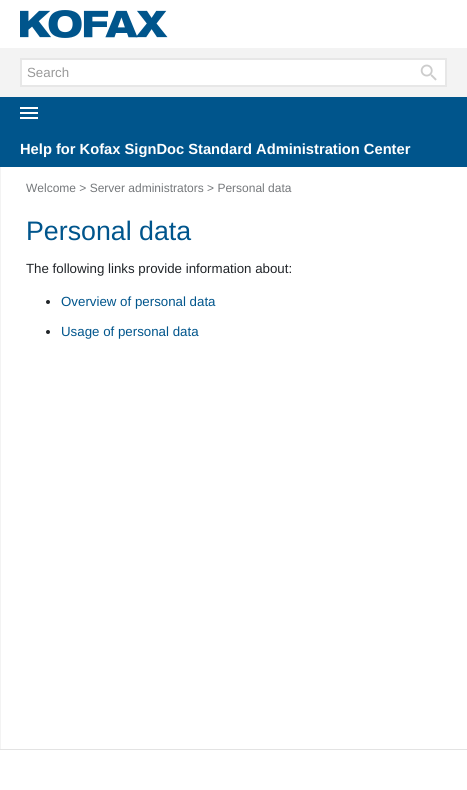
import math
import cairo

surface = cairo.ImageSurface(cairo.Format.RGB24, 467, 790)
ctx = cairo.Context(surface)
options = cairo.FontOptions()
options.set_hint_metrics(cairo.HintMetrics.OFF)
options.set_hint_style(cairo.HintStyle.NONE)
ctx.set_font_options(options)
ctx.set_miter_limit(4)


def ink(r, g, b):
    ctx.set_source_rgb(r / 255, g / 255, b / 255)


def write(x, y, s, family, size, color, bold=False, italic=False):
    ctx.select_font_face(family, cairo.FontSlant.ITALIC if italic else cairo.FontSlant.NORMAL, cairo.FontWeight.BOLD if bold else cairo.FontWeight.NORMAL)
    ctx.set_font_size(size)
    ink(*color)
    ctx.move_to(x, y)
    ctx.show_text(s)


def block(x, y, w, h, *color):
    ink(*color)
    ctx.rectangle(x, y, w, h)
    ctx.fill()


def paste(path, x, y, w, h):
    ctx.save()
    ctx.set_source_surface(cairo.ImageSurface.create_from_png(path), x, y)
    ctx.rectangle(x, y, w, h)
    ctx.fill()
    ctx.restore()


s1 = dict(family="Liberation Sans", size=13.3, color=(153, 153, 153))
s2 = dict(family="Liberation Sans", size=14.7, color=(255, 255, 255), bold=True)
s3 = dict(family="Liberation Sans", size=12, color=(117, 120, 123))
s4 = dict(family="Liberation Sans", size=26.75, color=(0, 85, 140))
s5 = dict(family="Liberation Sans", size=13.3, color=(33, 37, 41))
s6 = dict(family="Liberation Sans", size=13.3, color=(0, 85, 140))

ink(255, 255, 255)
ctx.paint()
paste("pic1.png", 20, 10, 148, 28)
block(0, 48, 467, 49, 243, 243, 243)
ink(255, 255, 255)
ctx.rectangle(21, 59, 425, 27)
ctx.fill_preserve()
ink(231, 231, 231)
ctx.stroke()
write(27, 77, "Search", **s1)
paste("pic2.png", 420, 64, 17, 17)
block(0, 97, 467, 70, 0, 85, 140)
block(20, 112, 18, 2, 255, 255, 255)
block(20, 107, 18, 2, 255, 255, 255)
block(20, 117, 18, 2, 255, 255, 255)
write(20, 154, "Help for Kofax SignDoc Standard Administration Center", **s2)
block(0, 167, 1, 582, 243, 243, 243)
write(26, 192, "Welcome > Server administrators > Personal data", **s3)
write(26, 240, "Personal data", **s4)
write(26, 273, "The following links provide information about:", **s5)
ctx.new_path()
ctx.arc(48, 302, 2, 0, 2 * math.pi)
ctx.fill()
write(61, 306, "Overview of personal data", **s6)
ink(33, 37, 41)
ctx.new_path()
ctx.arc(48, 332, 2, 0, 2 * math.pi)
ctx.fill()
write(61, 336, "Usage of personal data", **s6)
block(0, 749, 467, 1, 227, 227, 227)
surface.write_to_png("screenshot.png")
